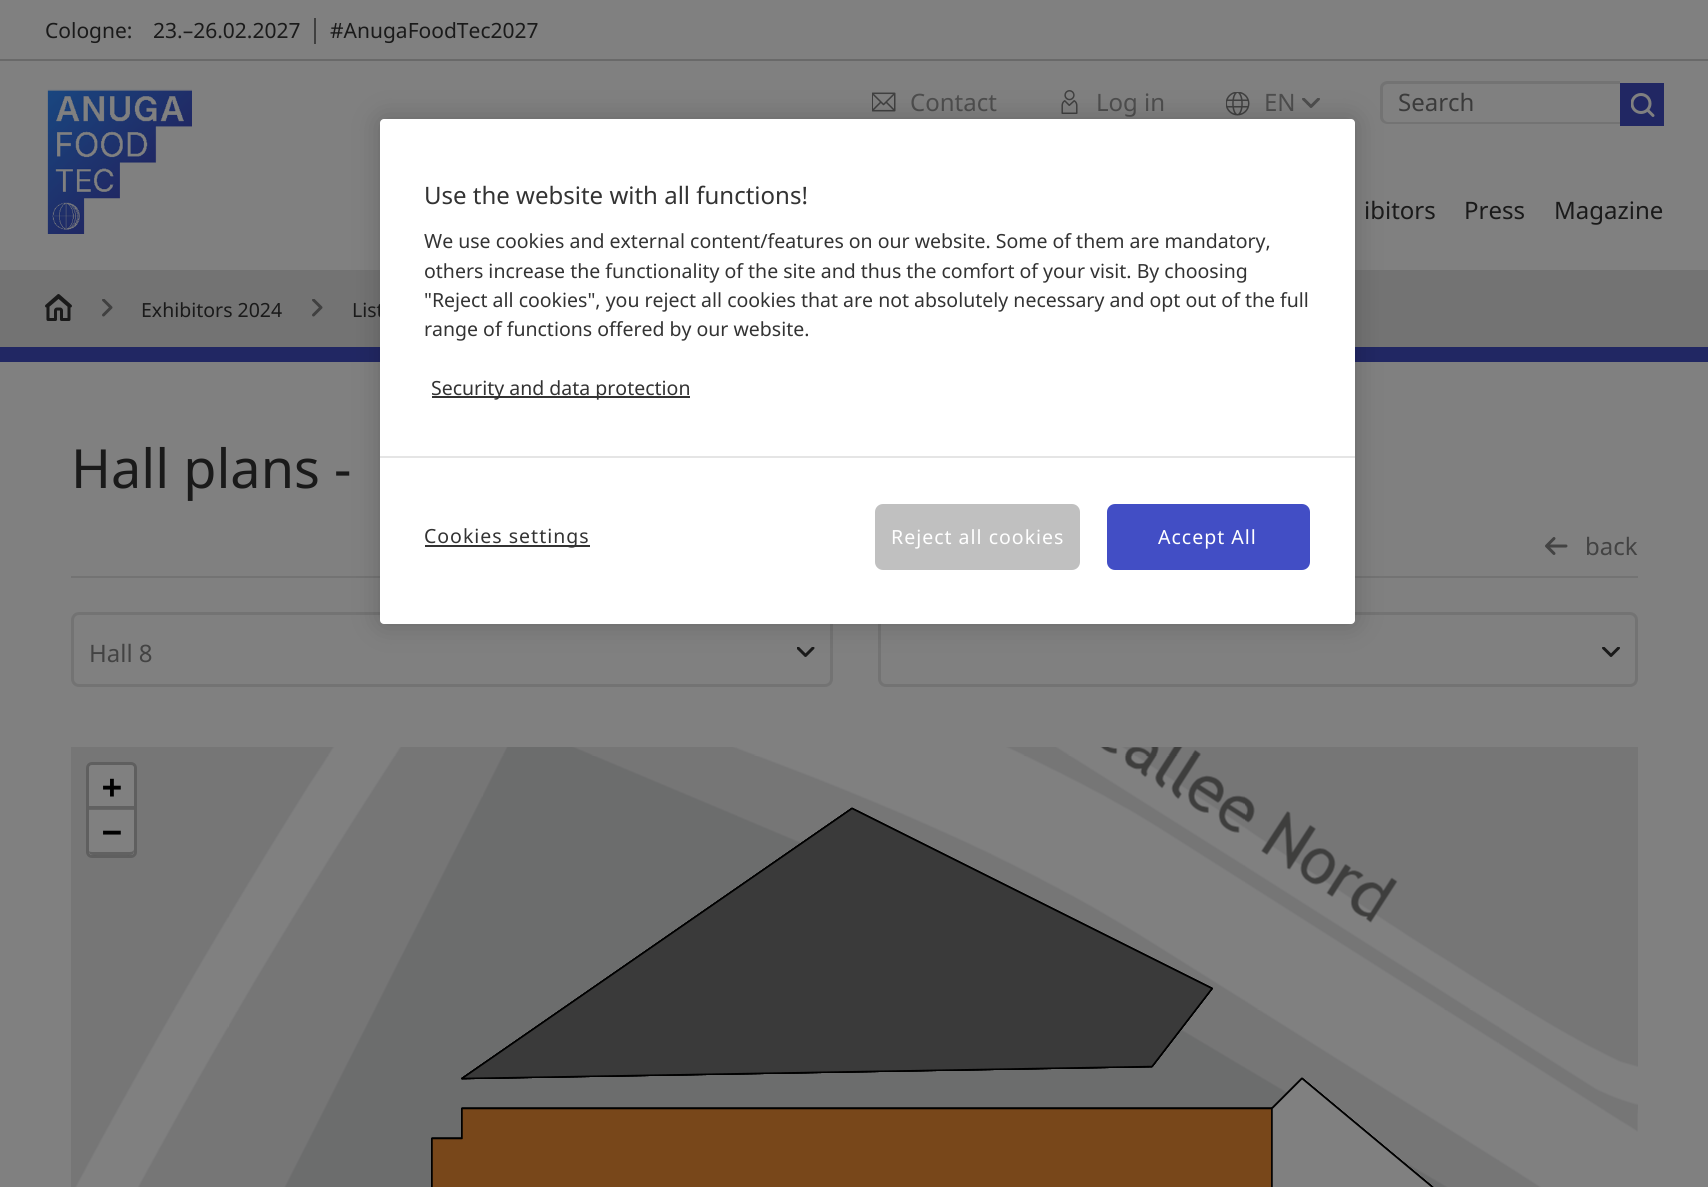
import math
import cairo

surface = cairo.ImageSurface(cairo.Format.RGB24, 1708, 1187)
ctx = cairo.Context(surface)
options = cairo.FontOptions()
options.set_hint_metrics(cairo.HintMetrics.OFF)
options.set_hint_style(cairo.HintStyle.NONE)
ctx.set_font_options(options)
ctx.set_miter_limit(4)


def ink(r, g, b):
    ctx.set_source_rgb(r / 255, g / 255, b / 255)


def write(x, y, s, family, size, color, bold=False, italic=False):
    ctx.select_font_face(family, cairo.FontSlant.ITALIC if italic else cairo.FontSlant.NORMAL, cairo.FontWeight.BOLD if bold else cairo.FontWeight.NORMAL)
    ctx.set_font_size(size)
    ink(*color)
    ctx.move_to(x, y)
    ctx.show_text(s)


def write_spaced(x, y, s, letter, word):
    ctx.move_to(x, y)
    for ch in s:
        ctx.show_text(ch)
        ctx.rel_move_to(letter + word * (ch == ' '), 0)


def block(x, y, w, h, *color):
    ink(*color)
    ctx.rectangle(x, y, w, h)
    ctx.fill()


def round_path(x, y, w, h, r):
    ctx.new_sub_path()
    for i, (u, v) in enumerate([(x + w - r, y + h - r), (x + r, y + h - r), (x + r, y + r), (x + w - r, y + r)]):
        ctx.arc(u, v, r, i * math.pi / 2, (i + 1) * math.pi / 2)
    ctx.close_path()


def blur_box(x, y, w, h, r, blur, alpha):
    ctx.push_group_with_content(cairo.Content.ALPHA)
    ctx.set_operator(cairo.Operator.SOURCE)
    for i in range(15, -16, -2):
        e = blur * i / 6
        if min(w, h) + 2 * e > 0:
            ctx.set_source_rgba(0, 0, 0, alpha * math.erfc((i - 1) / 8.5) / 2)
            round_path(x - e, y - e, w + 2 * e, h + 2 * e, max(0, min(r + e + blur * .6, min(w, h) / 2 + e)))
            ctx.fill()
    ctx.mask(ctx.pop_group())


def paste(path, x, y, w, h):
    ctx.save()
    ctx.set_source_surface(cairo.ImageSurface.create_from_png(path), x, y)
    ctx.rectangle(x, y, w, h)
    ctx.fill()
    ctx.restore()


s1 = dict(family="Noto Sans", size=21, color=(26, 26, 26))
s2 = dict(family="Noto Sans", size=24, color=(77, 77, 77))
s3 = dict(family="Noto Sans", size=24, color=(59, 59, 59))
s4 = dict(family="Noto Sans", size=24, color=(26, 26, 26))
s5 = dict(family="Noto Sans", size=19.5, color=(26, 26, 26))
s6 = dict(family="Noto Sans", size=24, color=(51, 51, 51))
s7 = dict(family="Noto Sans", size=19.5, color=(51, 51, 51))
s8 = dict(family="Noto Sans", size=54, color=(26, 26, 26))
s9 = dict(family="Noto Sans", size=24, color=(67, 67, 67))
s10 = dict(family="DejaVu Sans Mono", size=33, color=(0, 0, 0), bold=True)

ink(128, 128, 128)
ctx.paint()
write(45, 38, "Cologne:", **s1)
write(153, 38, "23.–26.02.2027", **s1)
block(314, 18, 2, 26, 64, 64, 64)
write(330, 38, "#AnugaFoodTec2027", **s1)
block(0, 59, 1708, 2, 105, 105, 105)
paste("pic1.png", 47, 89, 145, 145)
paste("pic2.png", 872, 92, 24, 20)
write(910, 111, "Contact", **s2)
paste("pic3.png", 1061, 90, 17, 24)
write(1096, 111, "Log in", **s2)
paste("pic4.png", 1226, 92, 24, 24)
write(1264, 111, "EN", **s2)
paste("pic5.png", 1302, 98, 18, 10)
ink(115, 115, 115)
ctx.set_fill_rule(cairo.FillRule.EVEN_ODD)
ctx.new_path()
ctx.move_to(1388, 81)
ctx.line_to(1620, 81)
ctx.line_to(1620, 124)
ctx.line_to(1388, 124)
ctx.curve_to(1383, 124, 1380, 121, 1380, 117)
ctx.line_to(1380, 88)
ctx.curve_to(1380, 84, 1383, 81, 1388, 81)
ctx.close_path()
ctx.move_to(1388, 84)
ctx.line_to(1620, 84)
ctx.line_to(1620, 122)
ctx.line_to(1388, 122)
ctx.curve_to(1385, 122, 1383, 119, 1383, 117)
ctx.line_to(1383, 88)
ctx.curve_to(1383, 86, 1385, 84, 1388, 84)
ctx.close_path()
ctx.fill()
write(1398, 111, "Search", **s3)
block(1620, 83, 44, 43, 33, 39, 99)
paste("pic6.png", 1631, 93, 24, 24)
write(1364, 219, "ibitors", **s4)
write(1464, 219, "Press", **s4)
write(1554, 219, "Magazine", **s4)
block(0, 270, 1708, 77, 115, 115, 115)
block(0, 347, 1708, 15, 33, 39, 99)
block(71, 576, 1567, 2, 115, 115, 115)
round_path(72.5, 613.5, 759, 72, 6.5)
ctx.set_line_width(3)
ctx.stroke()
paste("pic10.png", 797, 647, 18, 10)
round_path(879.5, 613.5, 757, 72, 6.5)
ctx.stroke()
ink(0, 0, 0)
blur_box(380, 119, 975, 505, 4, 13.5, 0.2)
write(352, 317, "List", **s5)
ink(255, 255, 255)
round_path(380, 119, 975, 505, 4)
ctx.fill()
write(424, 204, "Use the website with all functions!", **s6)
write(424, 248, "We use cookies and external content/features on our website. Some of them are mandatory,", **s7)
write(424, 278, "others increase the functionality of the site and thus the comfort of your visit. By choosing", **s7)
write(424, 307, "\"Reject all cookies\", you reject all cookies that are not absolutely necessary and opt out of the full", **s7)
write(424, 336, "range of functions offered by our website.", **s7)
block(432, 396, 258, 2, 51, 51, 51)
write(431, 395, "Security and data protection", **s7)
block(380, 456, 975, 2, 229, 229, 229)
block(425, 545, 165, 2, 51, 51, 51)
write_spaced(424, 543, "Cookies settings", 1, 0)
ink(192, 192, 192)
round_path(875, 504, 205, 66, 8)
ctx.fill()
ink(255, 255, 255)
write_spaced(891, 544, "Reject all cookies", 1, 0)
ink(66, 78, 197)
round_path(1108, 505, 201, 64, 7)
ctx.fill_preserve()
ctx.set_line_width(2)
ctx.stroke()
ink(255, 255, 255)
write_spaced(1158, 544, "Accept All", 1, 0)
paste("pic7.png", 102, 299, 11, 18)
paste("pic8.png", 45, 294, 27, 27)
paste("pic7.png", 312, 299, 11, 18)
write(141, 317, "Exhibitors 2024", **s5)
write(71, 488, "Hall plans -", **s8)
paste("pic9.png", 1545, 537, 23, 18)
write(1585, 555, "back", **s9)
write(89, 662, "Hall 8", **s9)
paste("pic11.png", 1602, 647, 18, 10)
paste("pic12.png", 71, 747, 1567, 440)
paste("pic13.png", 461, 807, 752, 273)
paste("pic14.png", 431, 1077, 1003, 110)
round_path(87.5, 763.5, 48, 93, 4.5)
ink(95, 95, 95)
ctx.set_line_width(3)
ctx.stroke()
ink(128, 128, 128)
ctx.new_path()
ctx.move_to(92, 765)
ctx.line_to(131, 765)
ctx.curve_to(132.5, 765, 134, 766.5, 134, 768)
ctx.line_to(134, 810)
ctx.line_to(89, 810)
ctx.line_to(89, 768)
ctx.curve_to(89, 766.5, 90.5, 765, 92, 765)
ctx.close_path()
ctx.fill()
block(89, 806, 45, 3, 97, 97, 97)
block(89, 809, 45, 1, 102, 102, 102)
write(102, 798, "+", **s10)
ink(128, 128, 128)
ctx.new_path()
ctx.move_to(89, 810)
ctx.line_to(134, 810)
ctx.line_to(134, 852)
ctx.curve_to(134, 853.5, 132.5, 855, 131, 855)
ctx.line_to(92, 855)
ctx.curve_to(90.5, 855, 89, 853.5, 89, 852)
ctx.close_path()
ctx.fill()
ctx.set_source_rgba(0.102, 0.102, 0.102, 0.3)
ctx.set_fill_rule(cairo.FillRule.WINDING)
ctx.new_path()
ctx.move_to(89, 851)
ctx.curve_to(89, 856, 94, 855, 98, 855)
ctx.line_to(124, 855)
ctx.curve_to(132, 855, 134, 856, 134, 849)
ctx.curve_to(134, 851, 132, 852, 130, 852)
ctx.line_to(92, 852)
ctx.curve_to(91, 852, 90, 852, 89, 851)
ctx.close_path()
ctx.fill()
write(102, 843, "−", **s10)
surface.write_to_png("screenshot.png")
